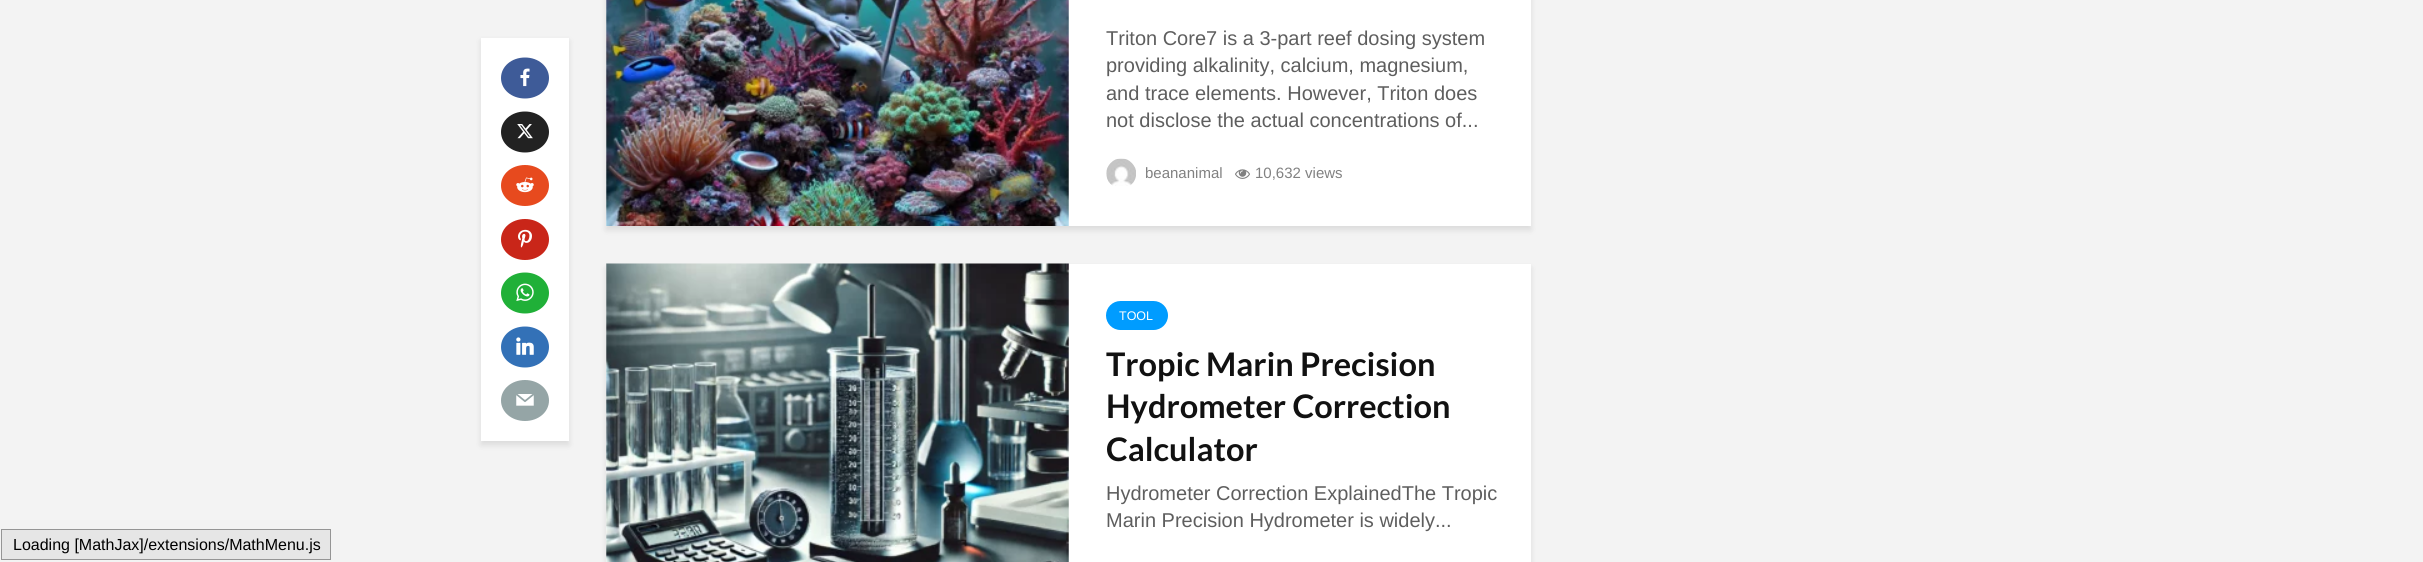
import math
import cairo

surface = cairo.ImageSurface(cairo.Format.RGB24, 2423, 562)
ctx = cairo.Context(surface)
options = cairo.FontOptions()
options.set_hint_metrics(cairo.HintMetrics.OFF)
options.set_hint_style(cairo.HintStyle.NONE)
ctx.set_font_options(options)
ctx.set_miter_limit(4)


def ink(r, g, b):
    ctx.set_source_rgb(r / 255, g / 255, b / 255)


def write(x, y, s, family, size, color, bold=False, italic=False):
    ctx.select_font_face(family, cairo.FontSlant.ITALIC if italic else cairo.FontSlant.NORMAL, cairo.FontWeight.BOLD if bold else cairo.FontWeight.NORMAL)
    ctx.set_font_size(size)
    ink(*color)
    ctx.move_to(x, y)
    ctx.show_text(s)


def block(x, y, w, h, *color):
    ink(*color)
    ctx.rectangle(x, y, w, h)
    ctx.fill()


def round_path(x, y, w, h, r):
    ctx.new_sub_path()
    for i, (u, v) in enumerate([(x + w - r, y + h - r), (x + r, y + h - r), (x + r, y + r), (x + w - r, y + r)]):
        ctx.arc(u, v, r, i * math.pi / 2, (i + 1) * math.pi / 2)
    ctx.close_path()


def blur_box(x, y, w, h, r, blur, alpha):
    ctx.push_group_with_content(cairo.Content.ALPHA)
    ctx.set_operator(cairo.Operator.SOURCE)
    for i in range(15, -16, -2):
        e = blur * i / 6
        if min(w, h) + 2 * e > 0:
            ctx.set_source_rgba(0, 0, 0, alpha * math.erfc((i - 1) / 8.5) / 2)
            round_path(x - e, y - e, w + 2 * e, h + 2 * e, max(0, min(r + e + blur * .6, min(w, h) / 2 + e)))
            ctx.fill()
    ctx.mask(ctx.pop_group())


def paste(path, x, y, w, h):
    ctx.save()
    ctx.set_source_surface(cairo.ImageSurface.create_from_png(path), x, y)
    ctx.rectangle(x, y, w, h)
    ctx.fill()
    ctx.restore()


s1 = dict(family="Liberation Sans", size=20, color=(94, 94, 94))
s2 = dict(family="Liberation Sans", size=15, color=(129, 129, 129))
s3 = dict(family="Liberation Sans", size=12.5, color=(255, 255, 255))
s4 = dict(family="Lato", size=32.5, color=(17, 17, 17), bold=True)
s5 = dict(family="Liberation Sans", size=16, color=(0, 0, 0))

ink(243, 243, 243)
ctx.paint()
ink(0, 1, 1)
blur_box(481, 41, 88, 404, 0, 3, 0.1)
block(481, 38, 88, 403, 255, 255, 255)
ink(62, 91, 152)
ctx.new_path()
ctx.move_to(525, 57.5)
ctx.curve_to(538.5, 57.5, 549, 66.5, 549, 78)
ctx.curve_to(549, 89.5, 538.5, 98.5, 525, 98.5)
ctx.curve_to(511.5, 98.5, 501, 89.5, 501, 78)
ctx.curve_to(501, 66.5, 511.5, 57.5, 525, 57.5)
ctx.close_path()
ctx.fill()
paste("pic1.png", 520, 68, 10, 19)
ink(34, 34, 34)
ctx.new_path()
ctx.move_to(525, 111.5)
ctx.curve_to(538.5, 111.5, 549, 120.5, 549, 132)
ctx.curve_to(549, 143.5, 538.5, 152.5, 525, 152.5)
ctx.curve_to(511.5, 152.5, 501, 143.5, 501, 132)
ctx.curve_to(501, 120.5, 511.5, 111.5, 525, 111.5)
ctx.close_path()
ctx.fill()
paste("pic2.png", 517, 124, 16, 15)
ink(231, 74, 30)
ctx.new_path()
ctx.move_to(525, 165)
ctx.curve_to(538.5, 165, 549, 174, 549, 185.5)
ctx.curve_to(549, 197, 538.5, 206, 525, 206)
ctx.curve_to(511.5, 206, 501, 197, 501, 185.5)
ctx.curve_to(501, 174, 511.5, 165, 525, 165)
ctx.close_path()
ctx.fill()
paste("pic3.png", 516, 177, 18, 16)
ink(201, 38, 25)
ctx.new_path()
ctx.move_to(525, 219)
ctx.curve_to(538.5, 219, 549, 228, 549, 239.5)
ctx.curve_to(549, 251, 538.5, 260, 525, 260)
ctx.curve_to(511.5, 260, 501, 251, 501, 239.5)
ctx.curve_to(501, 228, 511.5, 219, 525, 219)
ctx.close_path()
ctx.fill()
paste("pic4.png", 518, 229, 14, 19)
ink(32, 176, 56)
ctx.new_path()
ctx.move_to(525, 272.5)
ctx.curve_to(538.5, 272.5, 549, 281.5, 549, 293)
ctx.curve_to(549, 304.5, 538.5, 313.5, 525, 313.5)
ctx.curve_to(511.5, 313.5, 501, 304.5, 501, 293)
ctx.curve_to(501, 281.5, 511.5, 272.5, 525, 272.5)
ctx.close_path()
ctx.fill()
paste("pic5.png", 516, 283, 18, 18)
ink(51, 113, 183)
ctx.new_path()
ctx.move_to(525, 326.5)
ctx.curve_to(538.5, 326.5, 549, 335.5, 549, 347)
ctx.curve_to(549, 358.5, 538.5, 367.5, 525, 367.5)
ctx.curve_to(511.5, 367.5, 501, 358.5, 501, 347)
ctx.curve_to(501, 335.5, 511.5, 326.5, 525, 326.5)
ctx.close_path()
ctx.fill()
paste("pic6.png", 516, 337, 18, 18)
ink(149, 165, 166)
ctx.new_path()
ctx.move_to(525, 380)
ctx.curve_to(538.5, 380, 549, 389, 549, 400.5)
ctx.curve_to(549, 412, 538.5, 421, 525, 421)
ctx.curve_to(511.5, 421, 501, 412, 501, 400.5)
ctx.curve_to(501, 389, 511.5, 380, 525, 380)
ctx.close_path()
ctx.fill()
paste("pic7.png", 516, 394, 18, 12)
ink(0, 1, 1)
blur_box(606, -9, 925, 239, 0, 3, 0.1)
block(606, 0, 925, 226, 255, 255, 255)
paste("pic8.png", 606, 0, 463, 226)
write(1106, 45, "Triton Core7 is a 3-part reef dosing system", **s1)
write(1106, 72, "providing alkalinity, calcium, magnesium,", **s1)
write(1106, 100, "and trace elements. However, Triton does", **s1)
write(1106, 127, "not disclose the actual concentrations of...", **s1)
paste("pic9.png", 1106, 158, 30, 28)
write(1145, 178, "beananimal", **s2)
paste("pic10.png", 1235, 169, 15, 10)
write(1255, 178, "10,632 views", **s2)
ink(0, 1, 1)
blur_box(606, 268, 925, 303, 0, 3, 0.1)
block(606, 264, 925, 298, 255, 255, 255)
paste("pic11.png", 606, 263, 463, 299)
ink(0, 156, 255)
round_path(1106, 301, 62, 29, 14.5)
ctx.fill()
write(1119, 320, "TOOL", **s3)
write(1106, 376, "Tropic Marin Precision", **s4)
write(1106, 418, "Hydrometer Correction", **s4)
write(1106, 461, "Calculator", **s4)
write(1106, 500, "Hydrometer Correction ExplainedThe Tropic", **s1)
write(1106, 527, "Marin Precision Hydrometer is widely...", **s1)
ink(230, 230, 230)
ctx.rectangle(1.5, 529.5, 329, 30)
ctx.fill_preserve()
ink(149, 149, 149)
ctx.set_line_width(1)
ctx.stroke()
write(13, 550, "Loading [MathJax]/extensions/MathMenu.js", **s5)
surface.write_to_png("screenshot.png")
